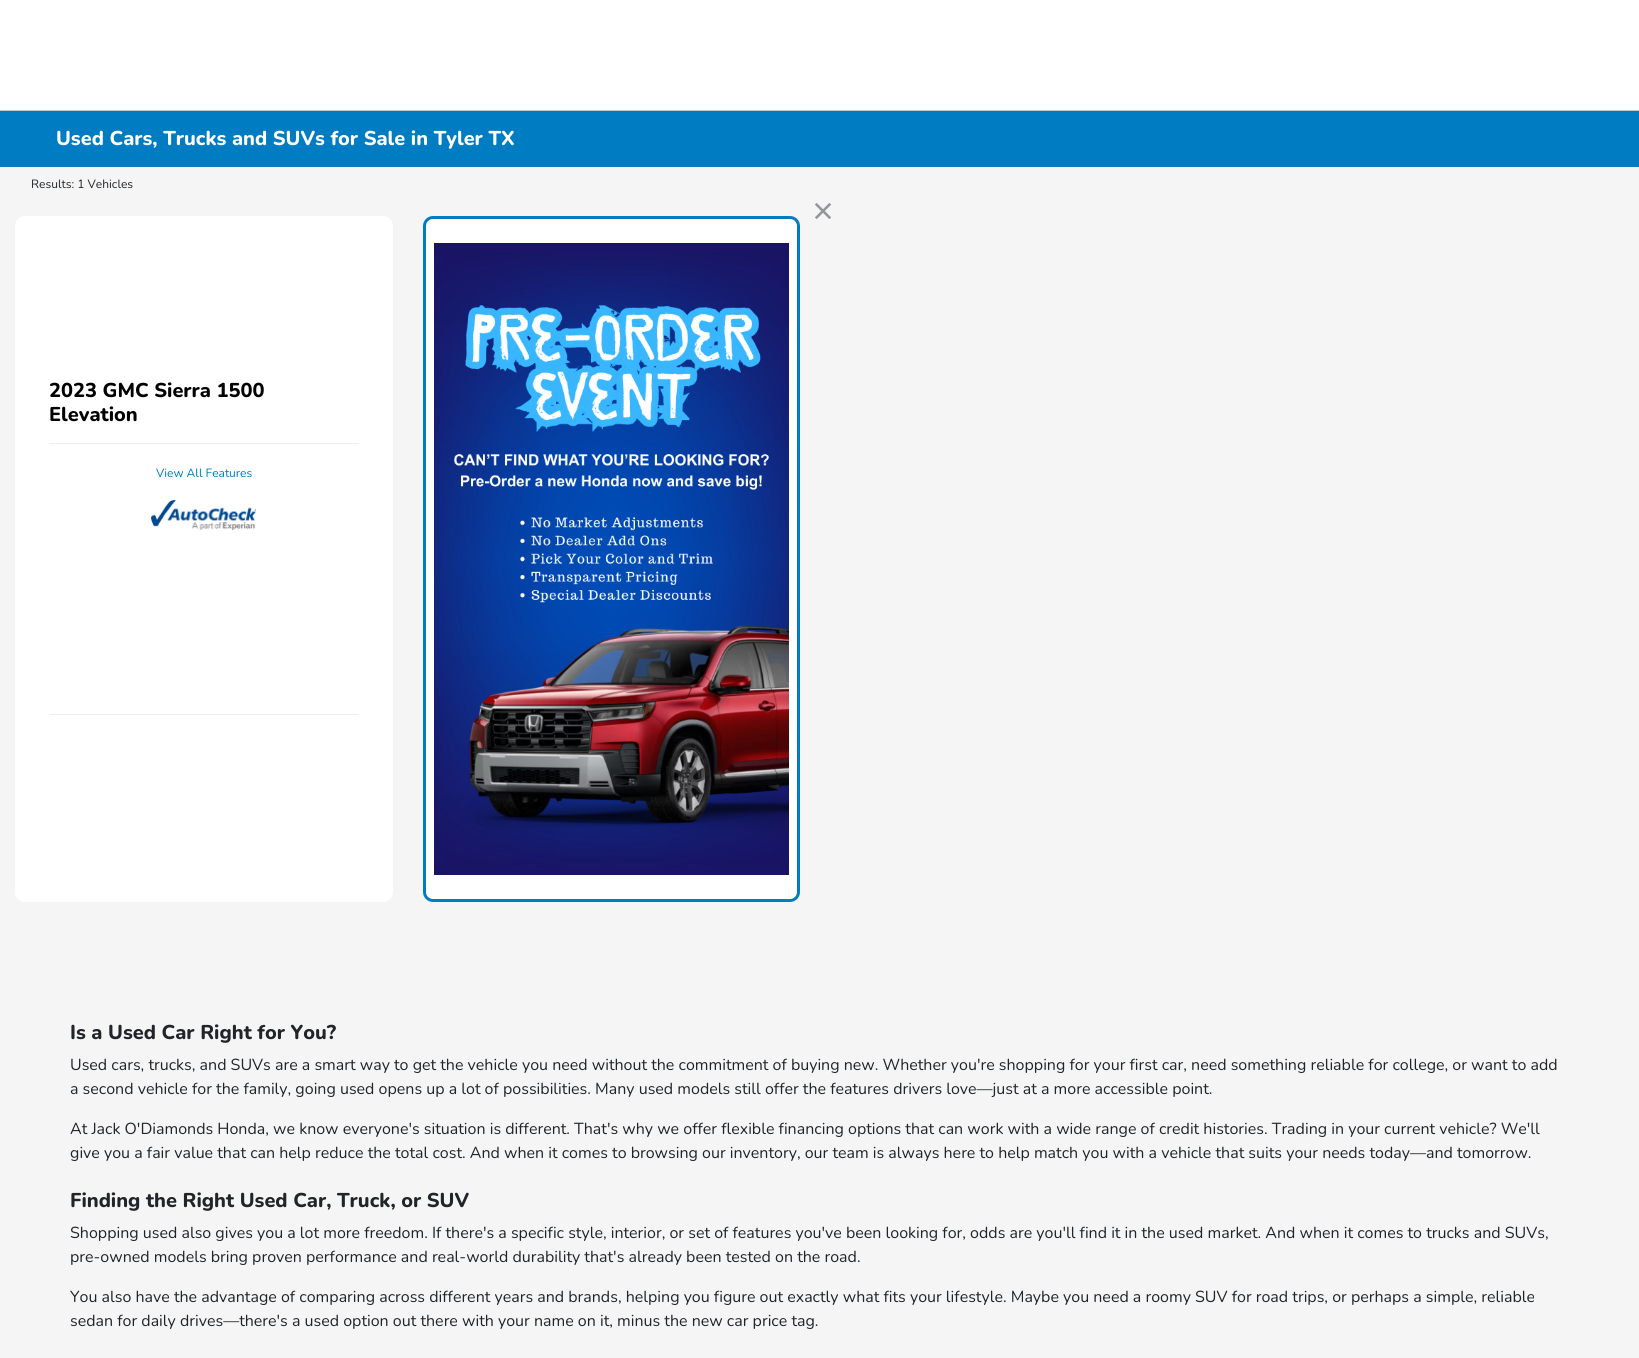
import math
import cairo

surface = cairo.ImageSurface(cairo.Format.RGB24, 1639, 1358)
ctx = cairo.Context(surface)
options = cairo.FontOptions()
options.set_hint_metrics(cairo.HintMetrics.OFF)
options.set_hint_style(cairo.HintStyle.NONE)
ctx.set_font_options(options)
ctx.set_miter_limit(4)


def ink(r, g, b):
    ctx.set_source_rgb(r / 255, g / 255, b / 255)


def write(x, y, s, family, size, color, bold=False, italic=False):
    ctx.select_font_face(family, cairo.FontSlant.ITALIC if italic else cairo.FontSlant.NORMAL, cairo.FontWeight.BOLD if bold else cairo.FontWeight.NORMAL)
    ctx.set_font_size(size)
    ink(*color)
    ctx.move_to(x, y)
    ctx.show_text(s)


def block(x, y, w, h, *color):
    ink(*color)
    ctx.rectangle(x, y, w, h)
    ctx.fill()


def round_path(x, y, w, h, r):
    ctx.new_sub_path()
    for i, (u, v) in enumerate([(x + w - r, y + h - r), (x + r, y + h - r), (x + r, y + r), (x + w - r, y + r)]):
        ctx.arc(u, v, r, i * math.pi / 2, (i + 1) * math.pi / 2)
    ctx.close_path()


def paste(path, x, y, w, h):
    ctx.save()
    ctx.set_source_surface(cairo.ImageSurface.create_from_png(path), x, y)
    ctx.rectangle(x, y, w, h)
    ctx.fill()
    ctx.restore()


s1 = dict(family="Nunito ExtraBold", size=20, color=(255, 255, 255))
s2 = dict(family="Nunito", size=12, color=(33, 37, 41))
s3 = dict(family="Nunito ExtraBold", size=20, color=(0, 0, 0))
s4 = dict(family="Nunito", size=12, color=(0, 124, 195))
s5 = dict(family="Nunito ExtraBold", size=20, color=(33, 37, 41))
s6 = dict(family="Nunito", size=16, color=(33, 37, 41))

ink(255, 255, 255)
ctx.paint()
block(0, 167, 1639, 1191, 245, 245, 245)
block(0, 111, 1639, 56, 0, 124, 195)
block(0, 110, 1639, 1, 198, 198, 198)
write(56, 145, "Used Cars, Trucks and SUVs for Sale in Tyler TX", **s1)
write(31, 188, "Results: 1 Vehicles", **s2)
paste("pic1.png", 815, 203, 16, 16)
ink(255, 255, 255)
round_path(15, 216, 378, 686, 10)
ctx.fill()
write(49, 397, "2023 GMC Sierra 1500", **s3)
write(49, 421, "Elevation", **s3)
block(49, 443, 310, 1, 237, 237, 237)
write(156, 477, "View All Features", **s4)
paste("pic2.png", 151, 500, 105, 30)
block(49, 714, 310, 1, 237, 237, 237)
ink(255, 255, 255)
round_path(424.5, 217.5, 374, 683, 8.5)
ctx.fill_preserve()
ink(0, 124, 195)
ctx.set_line_width(3)
ctx.stroke()
ink(255, 255, 255)
round_path(426, 219, 371, 680, 10)
ctx.fill()
paste("pic3.png", 434, 243, 355, 632)
write(70, 1039, "Is a Used Car Right for You?", **s5)
write(70, 1070, "Used cars, trucks, and SUVs are a smart way to get the vehicle you need without the commitment of buying new. Whether you're shopping for your first car, need something reliable for college, or want to add", **s6)
write(70, 1094, "a second vehicle for the family, going used opens up a lot of possibilities. Many used models still offer the features drivers love—just at a more accessible point.", **s6)
write(70, 1134, "At Jack O'Diamonds Honda, we know everyone's situation is different. That's why we offer flexible financing options that can work with a wide range of credit histories. Trading in your current vehicle? We'll", **s6)
write(70, 1158, "give you a fair value that can help reduce the total cost. And when it comes to browsing our inventory, our team is always here to help match you with a vehicle that suits your needs today—and tomorrow.", **s6)
write(70, 1207, "Finding the Right Used Car, Truck, or SUV", **s5)
write(70, 1238, "Shopping used also gives you a lot more freedom. If there's a specific style, interior, or set of features you've been looking for, odds are you'll find it in the used market. And when it comes to trucks and SUVs,", **s6)
write(70, 1262, "pre-owned models bring proven performance and real-world durability that's already been tested on the road.", **s6)
write(70, 1302, "You also have the advantage of comparing across different years and brands, helping you figure out exactly what fits your lifestyle. Maybe you need a roomy SUV for road trips, or perhaps a simple, reliable", **s6)
write(70, 1326, "sedan for daily drives—there's a used option out there with your name on it, minus the new car price tag.", **s6)
surface.write_to_png("screenshot.png")
